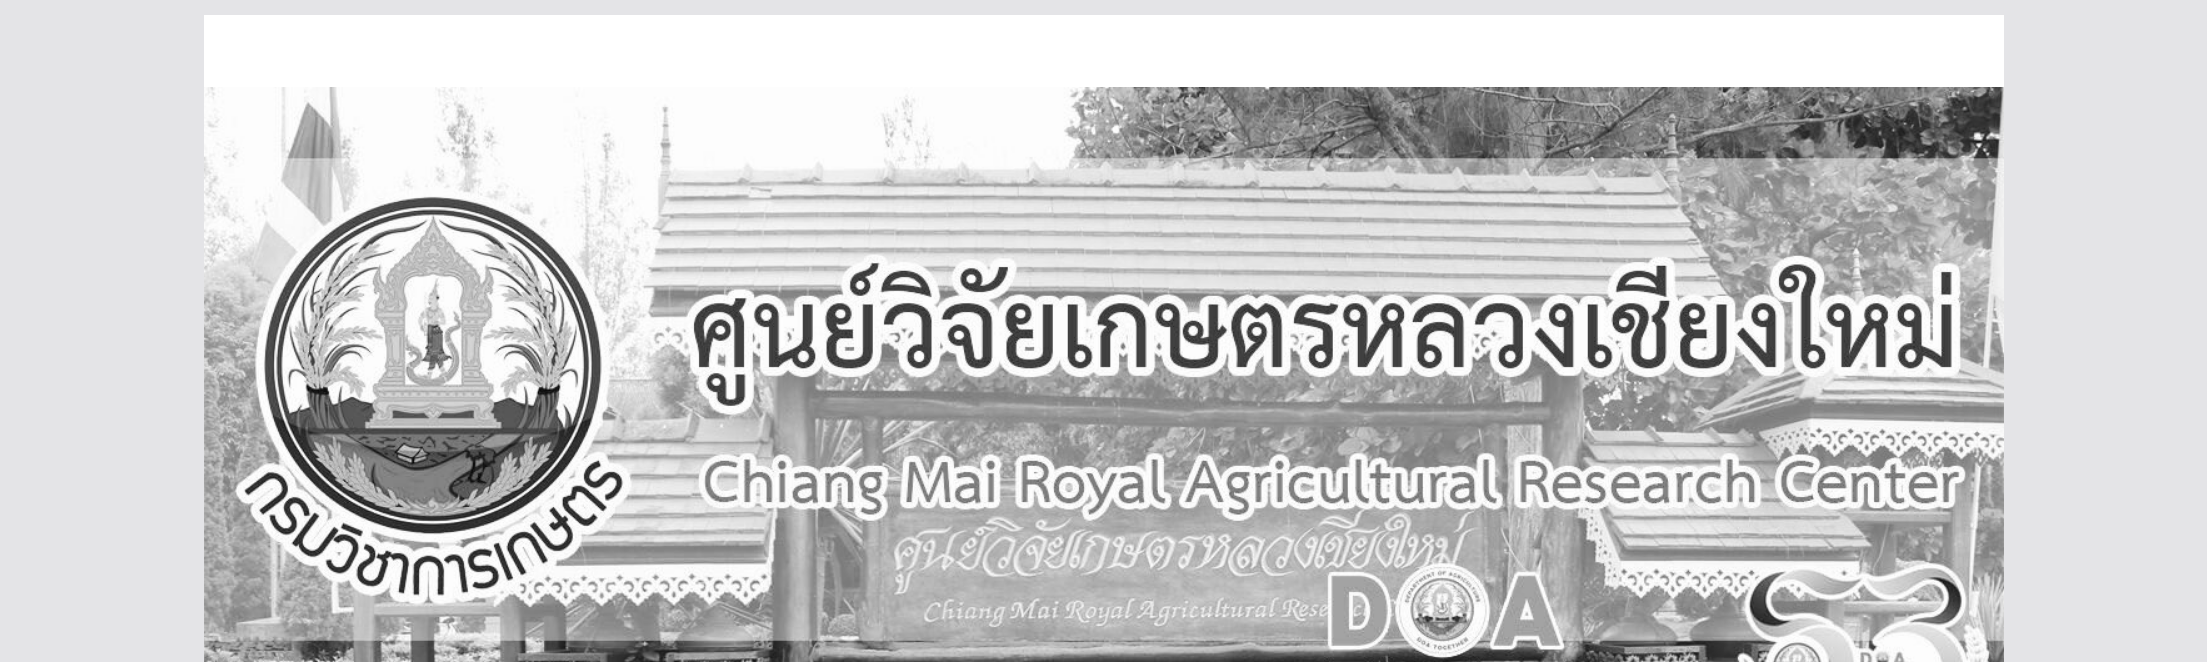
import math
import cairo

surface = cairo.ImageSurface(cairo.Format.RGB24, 2207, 662)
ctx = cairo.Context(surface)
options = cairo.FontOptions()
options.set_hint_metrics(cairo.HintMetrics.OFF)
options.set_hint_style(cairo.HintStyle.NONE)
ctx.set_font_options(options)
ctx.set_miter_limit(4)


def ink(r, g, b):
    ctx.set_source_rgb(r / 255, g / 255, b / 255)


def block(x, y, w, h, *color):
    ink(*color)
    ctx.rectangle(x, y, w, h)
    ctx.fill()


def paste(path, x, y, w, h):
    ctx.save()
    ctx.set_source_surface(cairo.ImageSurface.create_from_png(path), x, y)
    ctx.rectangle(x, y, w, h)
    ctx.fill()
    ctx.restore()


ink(228, 228, 231)
ctx.paint()
block(204, 15, 1800, 72, 255, 255, 255)
paste("pic1.png", 204, 87, 1800, 575)
surface.write_to_png("screenshot.png")
